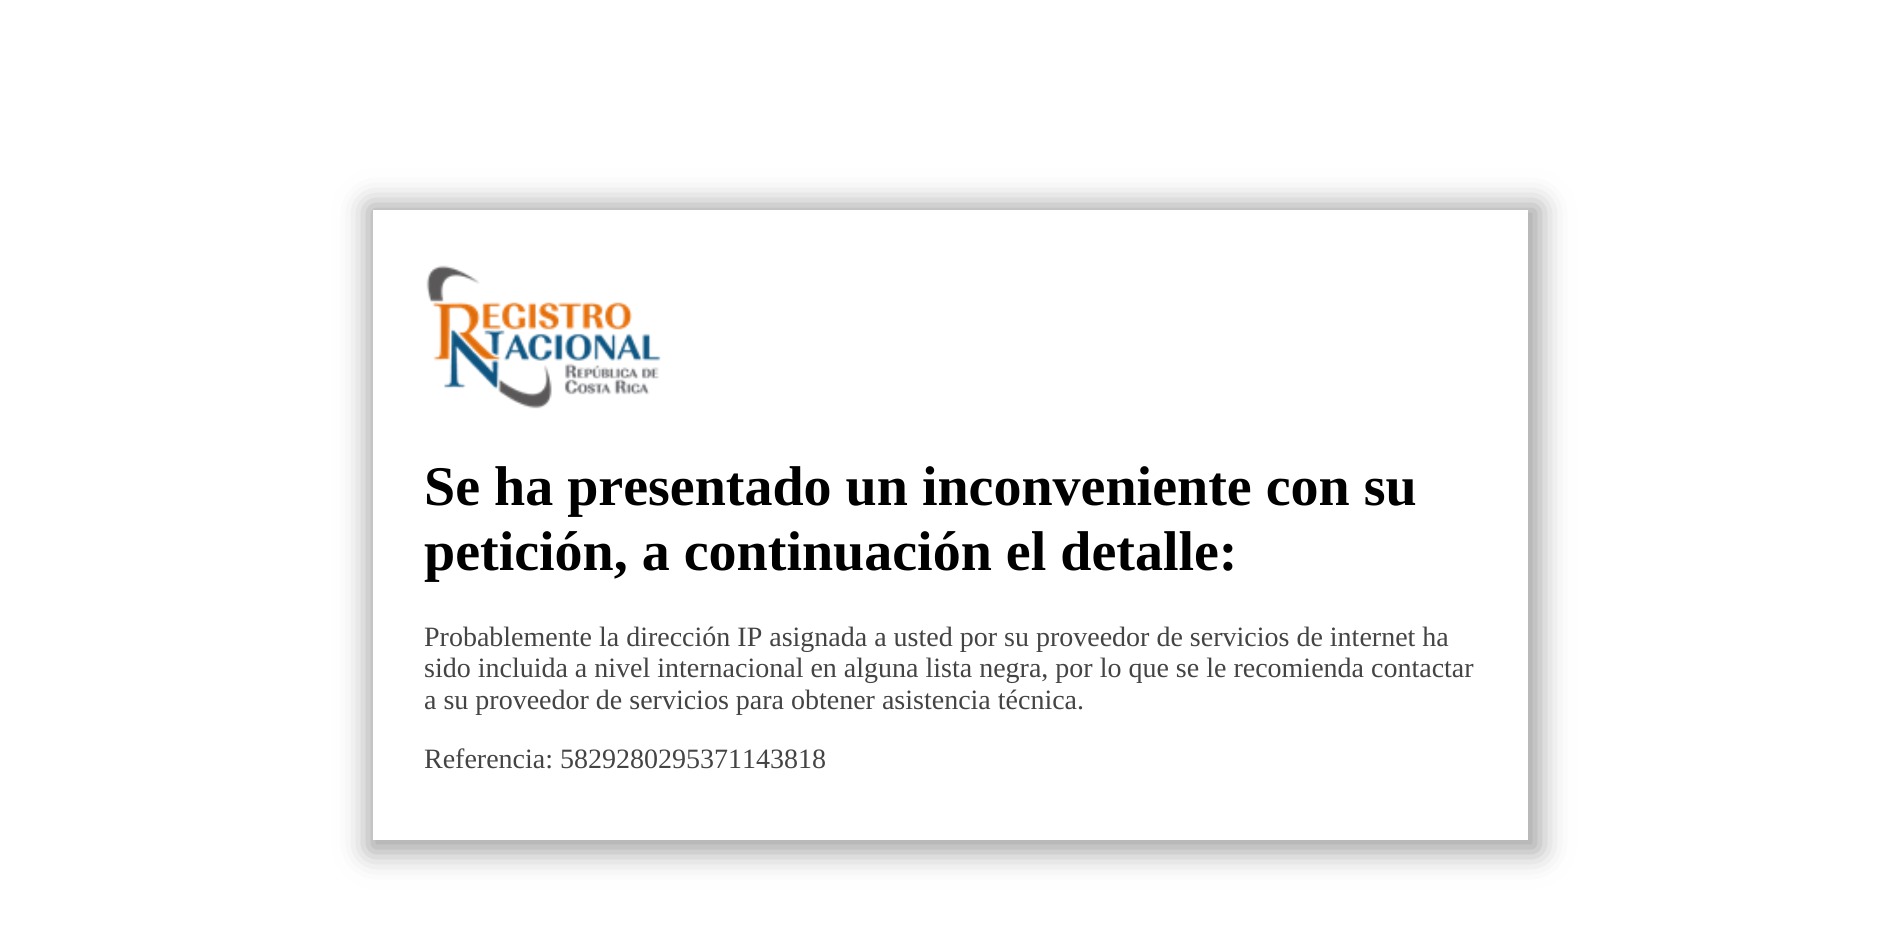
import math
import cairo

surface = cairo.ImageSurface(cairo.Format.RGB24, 1898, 941)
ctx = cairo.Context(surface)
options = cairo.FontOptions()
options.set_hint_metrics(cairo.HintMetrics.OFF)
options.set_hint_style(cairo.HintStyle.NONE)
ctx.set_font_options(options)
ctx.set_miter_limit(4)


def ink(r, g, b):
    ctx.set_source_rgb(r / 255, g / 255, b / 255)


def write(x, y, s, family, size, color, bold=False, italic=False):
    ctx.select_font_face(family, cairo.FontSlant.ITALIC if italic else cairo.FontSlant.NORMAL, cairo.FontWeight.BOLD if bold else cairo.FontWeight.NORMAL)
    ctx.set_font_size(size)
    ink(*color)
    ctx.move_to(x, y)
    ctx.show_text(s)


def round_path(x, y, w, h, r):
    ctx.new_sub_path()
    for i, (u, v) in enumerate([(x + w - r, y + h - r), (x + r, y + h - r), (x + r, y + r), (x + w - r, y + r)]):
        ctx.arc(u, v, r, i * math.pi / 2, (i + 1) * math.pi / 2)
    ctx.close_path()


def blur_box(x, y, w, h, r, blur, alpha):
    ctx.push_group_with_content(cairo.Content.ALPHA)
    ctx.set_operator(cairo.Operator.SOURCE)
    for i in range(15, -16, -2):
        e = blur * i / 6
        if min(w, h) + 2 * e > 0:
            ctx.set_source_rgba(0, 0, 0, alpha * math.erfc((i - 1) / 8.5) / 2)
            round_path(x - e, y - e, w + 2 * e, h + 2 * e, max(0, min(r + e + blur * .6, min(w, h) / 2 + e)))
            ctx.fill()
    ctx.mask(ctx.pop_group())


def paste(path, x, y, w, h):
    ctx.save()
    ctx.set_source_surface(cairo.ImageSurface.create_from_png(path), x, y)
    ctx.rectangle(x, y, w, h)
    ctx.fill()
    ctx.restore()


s1 = dict(family="Liberation Serif", size=56, color=(0, 0, 0), bold=True)
s2 = dict(family="Liberation Serif", size=28, color=(68, 68, 68))

ink(255, 255, 255)
ctx.paint()
ctx.save()
ctx.set_fill_rule(cairo.FillRule.EVEN_ODD)
ctx.new_path()
ctx.move_to(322, 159)
ctx.line_to(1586, 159)
ctx.line_to(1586, 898)
ctx.line_to(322, 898)
ctx.close_path()
ctx.move_to(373, 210)
ctx.line_to(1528, 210)
ctx.line_to(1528, 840)
ctx.line_to(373, 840)
ctx.close_path()
ctx.clip()
ink(68, 68, 68)
blur_box(368, 205, 1172, 647, 0, 15, 0.5)
ctx.restore()
paste("pic1.png", 426, 265, 235, 144)
write(424, 505, "Se ha presentado un inconveniente con su", **s1)
write(424, 570, "petición, a continuación el detalle:", **s1)
write(424, 646, "Probablemente la dirección IP asignada a usted por su proveedor de servicios de internet ha", **s2)
write(424, 677, "sido incluida a nivel internacional en alguna lista negra, por lo que se le recomienda contactar", **s2)
write(424, 709, "a su proveedor de servicios para obtener asistencia técnica.", **s2)
write(424, 768, "Referencia: 5829280295371143818", **s2)
surface.write_to_png("screenshot.png")
